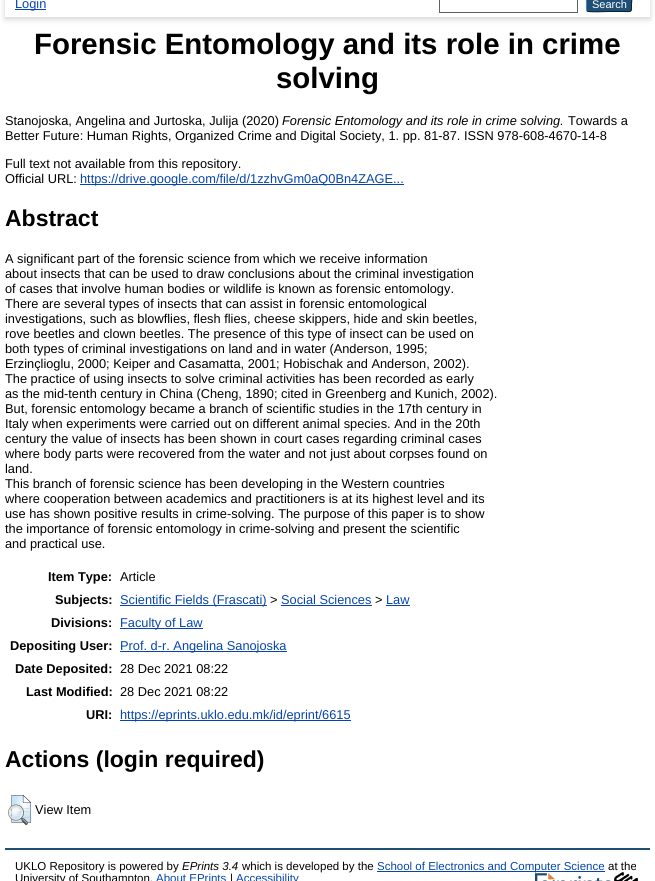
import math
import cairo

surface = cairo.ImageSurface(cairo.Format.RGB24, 655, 881)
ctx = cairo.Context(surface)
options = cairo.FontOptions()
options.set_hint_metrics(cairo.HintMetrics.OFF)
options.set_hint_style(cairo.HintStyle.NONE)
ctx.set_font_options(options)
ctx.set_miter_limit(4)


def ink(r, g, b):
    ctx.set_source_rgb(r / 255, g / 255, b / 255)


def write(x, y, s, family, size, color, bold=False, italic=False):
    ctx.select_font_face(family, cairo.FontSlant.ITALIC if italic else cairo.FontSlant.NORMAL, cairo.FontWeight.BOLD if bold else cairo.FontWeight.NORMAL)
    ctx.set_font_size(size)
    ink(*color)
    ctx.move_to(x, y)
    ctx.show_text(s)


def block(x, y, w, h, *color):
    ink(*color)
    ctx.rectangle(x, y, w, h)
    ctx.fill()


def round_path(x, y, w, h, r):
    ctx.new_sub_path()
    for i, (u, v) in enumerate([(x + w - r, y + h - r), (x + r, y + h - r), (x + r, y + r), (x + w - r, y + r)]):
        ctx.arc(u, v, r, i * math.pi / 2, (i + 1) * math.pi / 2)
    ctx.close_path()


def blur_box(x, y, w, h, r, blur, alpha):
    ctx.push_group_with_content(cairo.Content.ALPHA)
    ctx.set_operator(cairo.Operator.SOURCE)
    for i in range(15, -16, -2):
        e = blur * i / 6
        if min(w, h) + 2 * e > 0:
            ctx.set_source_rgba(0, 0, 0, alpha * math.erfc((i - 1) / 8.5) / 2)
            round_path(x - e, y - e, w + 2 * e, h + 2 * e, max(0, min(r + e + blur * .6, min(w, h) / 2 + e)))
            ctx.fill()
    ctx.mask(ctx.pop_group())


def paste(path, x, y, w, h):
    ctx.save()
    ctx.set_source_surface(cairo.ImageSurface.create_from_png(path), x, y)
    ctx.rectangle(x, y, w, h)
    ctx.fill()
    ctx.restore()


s1 = dict(family="Liberation Sans", size=12.8, color=(6, 69, 173))
s2 = dict(family="Liberation Sans", size=11, color=(255, 255, 255))
s3 = dict(family="Liberation Sans", size=29.4, color=(0, 0, 0), bold=True)
s4 = dict(family="Liberation Sans", size=12.8, color=(0, 0, 0))
s5 = dict(family="Liberation Sans", size=12.8, color=(0, 0, 0), italic=True)
s6 = dict(family="Liberation Sans", size=23, color=(0, 0, 0), bold=True)
s7 = dict(family="Liberation Sans", size=12.8, color=(0, 0, 0), bold=True)
s8 = dict(family="Liberation Sans", size=11.5, color=(0, 0, 0))
s9 = dict(family="Liberation Sans", size=11.5, color=(0, 0, 0), italic=True)
s10 = dict(family="Liberation Sans", size=11.5, color=(6, 69, 173))

ink(255, 255, 255)
ctx.paint()
ink(100, 100, 100)
blur_box(5, -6, 645, 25, 0, 3, 0.3)
block(5, 0, 645, 17, 255, 255, 255)
block(15, 9, 31, 1, 6, 69, 173)
write(15, 8, "Login", **s1)
ctx.rectangle(439.5, -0.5, 138, 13)
ink(96, 96, 96)
ctx.set_line_width(1)
ctx.stroke()
ink(31, 79, 118)
round_path(586, -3, 46, 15, 3)
ctx.fill()
ctx.new_path()
ctx.move_to(631, -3)
ctx.curve_to(632.5, -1, 631.5, 2, 631.5, 4)
ctx.curve_to(631.5, 13, 632, 11.5, 622.5, 11.5)
ctx.line_to(609, 11.5)
ctx.curve_to(605.5, 11.5, 589, 12.5, 587, 11)
ink(13, 33, 49)
ctx.stroke()
ctx.new_path()
ctx.move_to(587, 11)
ctx.curve_to(586, 9.5, 586.5, 5.5, 586.5, 4)
ctx.curve_to(586.5, 2.5, 586, -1.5, 587, -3)
ink(82, 135, 179)
ctx.stroke()
write(592, 8, "Search", **s2)
write(34, 54, "Forensic Entomology and its role in crime", **s3)
write(276, 88, "solving", **s3)
write(5, 125, "Stanojoska, Angelina and Jurtoska, Julija (2020)", **s4)
write(282, 125, "Forensic Entomology and its role in crime solving.", **s5)
write(568, 125, "Towards a", **s4)
write(5, 140, "Better Future: Human Rights, Organized Crime and Digital Society, 1. pp. 81-87. ISSN 978-608-4670-14-8", **s4)
write(5, 168, "Full text not available from this repository.", **s4)
write(5, 183, "Official URL:", **s4)
block(80, 184, 324, 1, 6, 69, 173)
write(80, 183, "https://drive.google.com/file/d/1zzhvGm0aQ0Bn4ZAGE...", **s1)
write(5, 226, "Abstract", **s6)
write(5, 263, "A significant part of the forensic science from which we receive information", **s4)
write(5, 278, "about insects that can be used to draw conclusions about the criminal investigation", **s4)
write(5, 293, "of cases that involve human bodies or wildlife is known as forensic entomology.", **s4)
write(5, 308, "There are several types of insects that can assist in forensic entomological", **s4)
write(5, 323, "investigations, such as blowflies, flesh flies, cheese skippers, hide and skin beetles,", **s4)
write(5, 338, "rove beetles and clown beetles. The presence of this type of insect can be used on", **s4)
write(5, 353, "both types of criminal investigations on land and in water (Anderson, 1995;", **s4)
write(5, 368, "Erzinçlioglu, 2000; Keiper and Casamatta, 2001; Hobischak and Anderson, 2002).", **s4)
write(5, 383, "The practice of using insects to solve criminal activities has been recorded as early", **s4)
write(5, 398, "as the mid-tenth century in China (Cheng, 1890; cited in Greenberg and Kunich, 2002).", **s4)
write(5, 413, "But, forensic entomology became a branch of scientific studies in the 17th century in", **s4)
write(5, 428, "Italy when experiments were carried out on different animal species. And in the 20th", **s4)
write(5, 443, "century the value of insects has been shown in court cases regarding criminal cases", **s4)
write(5, 458, "where body parts were recovered from the water and not just about corpses found on", **s4)
write(5, 473, "land.", **s4)
write(5, 488, "This branch of forensic science has been developing in the Western countries", **s4)
write(5, 503, "where cooperation between academics and practitioners is at its highest level and its", **s4)
write(5, 518, "use has shown positive results in crime-solving. The purpose of this paper is to show", **s4)
write(5, 533, "the importance of forensic entomology in crime-solving and present the scientific", **s4)
write(5, 548, "and practical use.", **s4)
write(48, 581, "Item Type:", **s7)
write(120, 581, "Article", **s4)
write(55, 604, "Subjects:", **s7)
block(120, 605, 147, 1, 6, 69, 173)
write(120, 604, "Scientific Fields (Frascati)", **s1)
write(270, 604, ">", **s4)
write(281, 604, "Social Sciences", **s1)
block(281, 605, 91, 1, 6, 69, 173)
write(375, 604, ">", **s4)
write(386, 604, "Law", **s1)
block(386, 605, 24, 1, 6, 69, 173)
write(51, 627, "Divisions:", **s7)
block(120, 628, 83, 1, 6, 69, 173)
write(120, 627, "Faculty of Law", **s1)
write(10, 650, "Depositing User:", **s7)
block(120, 651, 167, 1, 6, 69, 173)
write(120, 650, "Prof. d-r. Angelina Sanojoska", **s1)
write(15, 673, "Date Deposited:", **s7)
write(120, 673, "28 Dec 2021 08:22", **s4)
write(26, 696, "Last Modified:", **s7)
write(120, 696, "28 Dec 2021 08:22", **s4)
write(86, 719, "URI:", **s7)
block(120, 720, 231, 1, 6, 69, 173)
write(120, 719, "https://eprints.uklo.edu.mk/id/eprint/6615", **s1)
write(5, 767, "Actions (login required)", **s6)
paste("pic1.png", 8, 795, 23, 30)
write(35, 814, "View Item", **s4)
block(5, 848, 645, 2, 32, 79, 118)
write(15, 870, "UKLO Repository is powered by", **s8)
write(182, 870, "EPrints 3.4", **s9)
write(242, 870, "which is developed by the", **s8)
block(377, 871, 228, 1, 6, 69, 173)
write(377, 870, "School of Electronics and Computer Science", **s10)
write(608, 870, "at the", **s8)
write(15, 882, "University of Southampton.", **s8)
write(156, 882, "About EPrints", **s10)
write(230, 882, "|", **s8)
write(236, 882, "Accessibility", **s10)
paste("pic2.png", 535, 873, 76, 8)
paste("pic3.png", 613, 872, 26, 9)
surface.write_to_png("screenshot.png")
